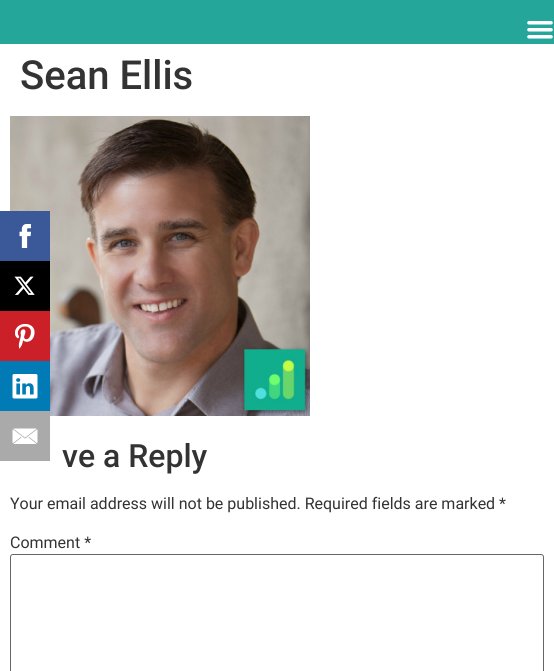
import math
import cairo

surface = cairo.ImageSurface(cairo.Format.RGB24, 554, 671)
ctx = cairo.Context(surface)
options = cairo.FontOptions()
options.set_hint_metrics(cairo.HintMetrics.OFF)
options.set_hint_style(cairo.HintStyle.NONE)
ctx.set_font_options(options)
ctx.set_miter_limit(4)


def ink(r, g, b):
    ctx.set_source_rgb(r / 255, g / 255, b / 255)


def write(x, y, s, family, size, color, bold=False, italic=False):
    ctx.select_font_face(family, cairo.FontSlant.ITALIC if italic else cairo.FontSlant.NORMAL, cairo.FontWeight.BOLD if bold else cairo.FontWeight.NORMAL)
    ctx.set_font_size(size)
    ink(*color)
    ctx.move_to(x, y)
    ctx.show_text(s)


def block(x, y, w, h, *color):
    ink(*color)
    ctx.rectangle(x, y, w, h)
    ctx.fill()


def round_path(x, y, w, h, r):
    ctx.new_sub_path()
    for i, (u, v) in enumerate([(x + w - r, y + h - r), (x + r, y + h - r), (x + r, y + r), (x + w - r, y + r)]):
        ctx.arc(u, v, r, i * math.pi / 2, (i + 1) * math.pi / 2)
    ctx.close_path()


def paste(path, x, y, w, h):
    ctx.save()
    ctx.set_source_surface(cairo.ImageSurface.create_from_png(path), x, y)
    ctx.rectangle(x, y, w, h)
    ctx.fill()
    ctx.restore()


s1 = dict(family="Roboto Medium", size=40, color=(51, 51, 51))
s2 = dict(family="Roboto Medium", size=32, color=(51, 51, 51))
s3 = dict(family="Roboto", size=16, color=(51, 51, 51))

ink(255, 255, 255)
ctx.paint()
block(0, 0, 554, 44, 37, 166, 155)
block(10, 22, 1, 1, 60, 167, 160)
paste("pic1.png", 527, 21, 26, 18)
write(20, 89, "Sean Ellis", **s1)
paste("pic2.png", 10, 116, 300, 300)
write(62, 467, "ve a Reply", **s2)
write(10, 509, "Your email address will not be published. Required fields are marked *", **s3)
write(10, 548, "Comment *", **s3)
round_path(10.5, 554.5, 533, 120, 2.5)
ink(102, 102, 102)
ctx.set_line_width(1)
ctx.stroke()
block(0, 211, 50, 50, 59, 89, 152)
paste("pic3.png", 19, 224, 12, 24)
block(0, 261, 50, 50, 0, 0, 0)
paste("pic4.png", 14, 276, 21, 19)
block(0, 311, 50, 50, 203, 32, 39)
paste("pic5.png", 15, 324, 20, 25)
block(0, 361, 50, 50, 0, 123, 182)
paste("pic6.png", 12, 374, 26, 25)
block(0, 411, 50, 50, 170, 170, 170)
paste("pic7.png", 12, 428, 26, 16)
surface.write_to_png("screenshot.png")
